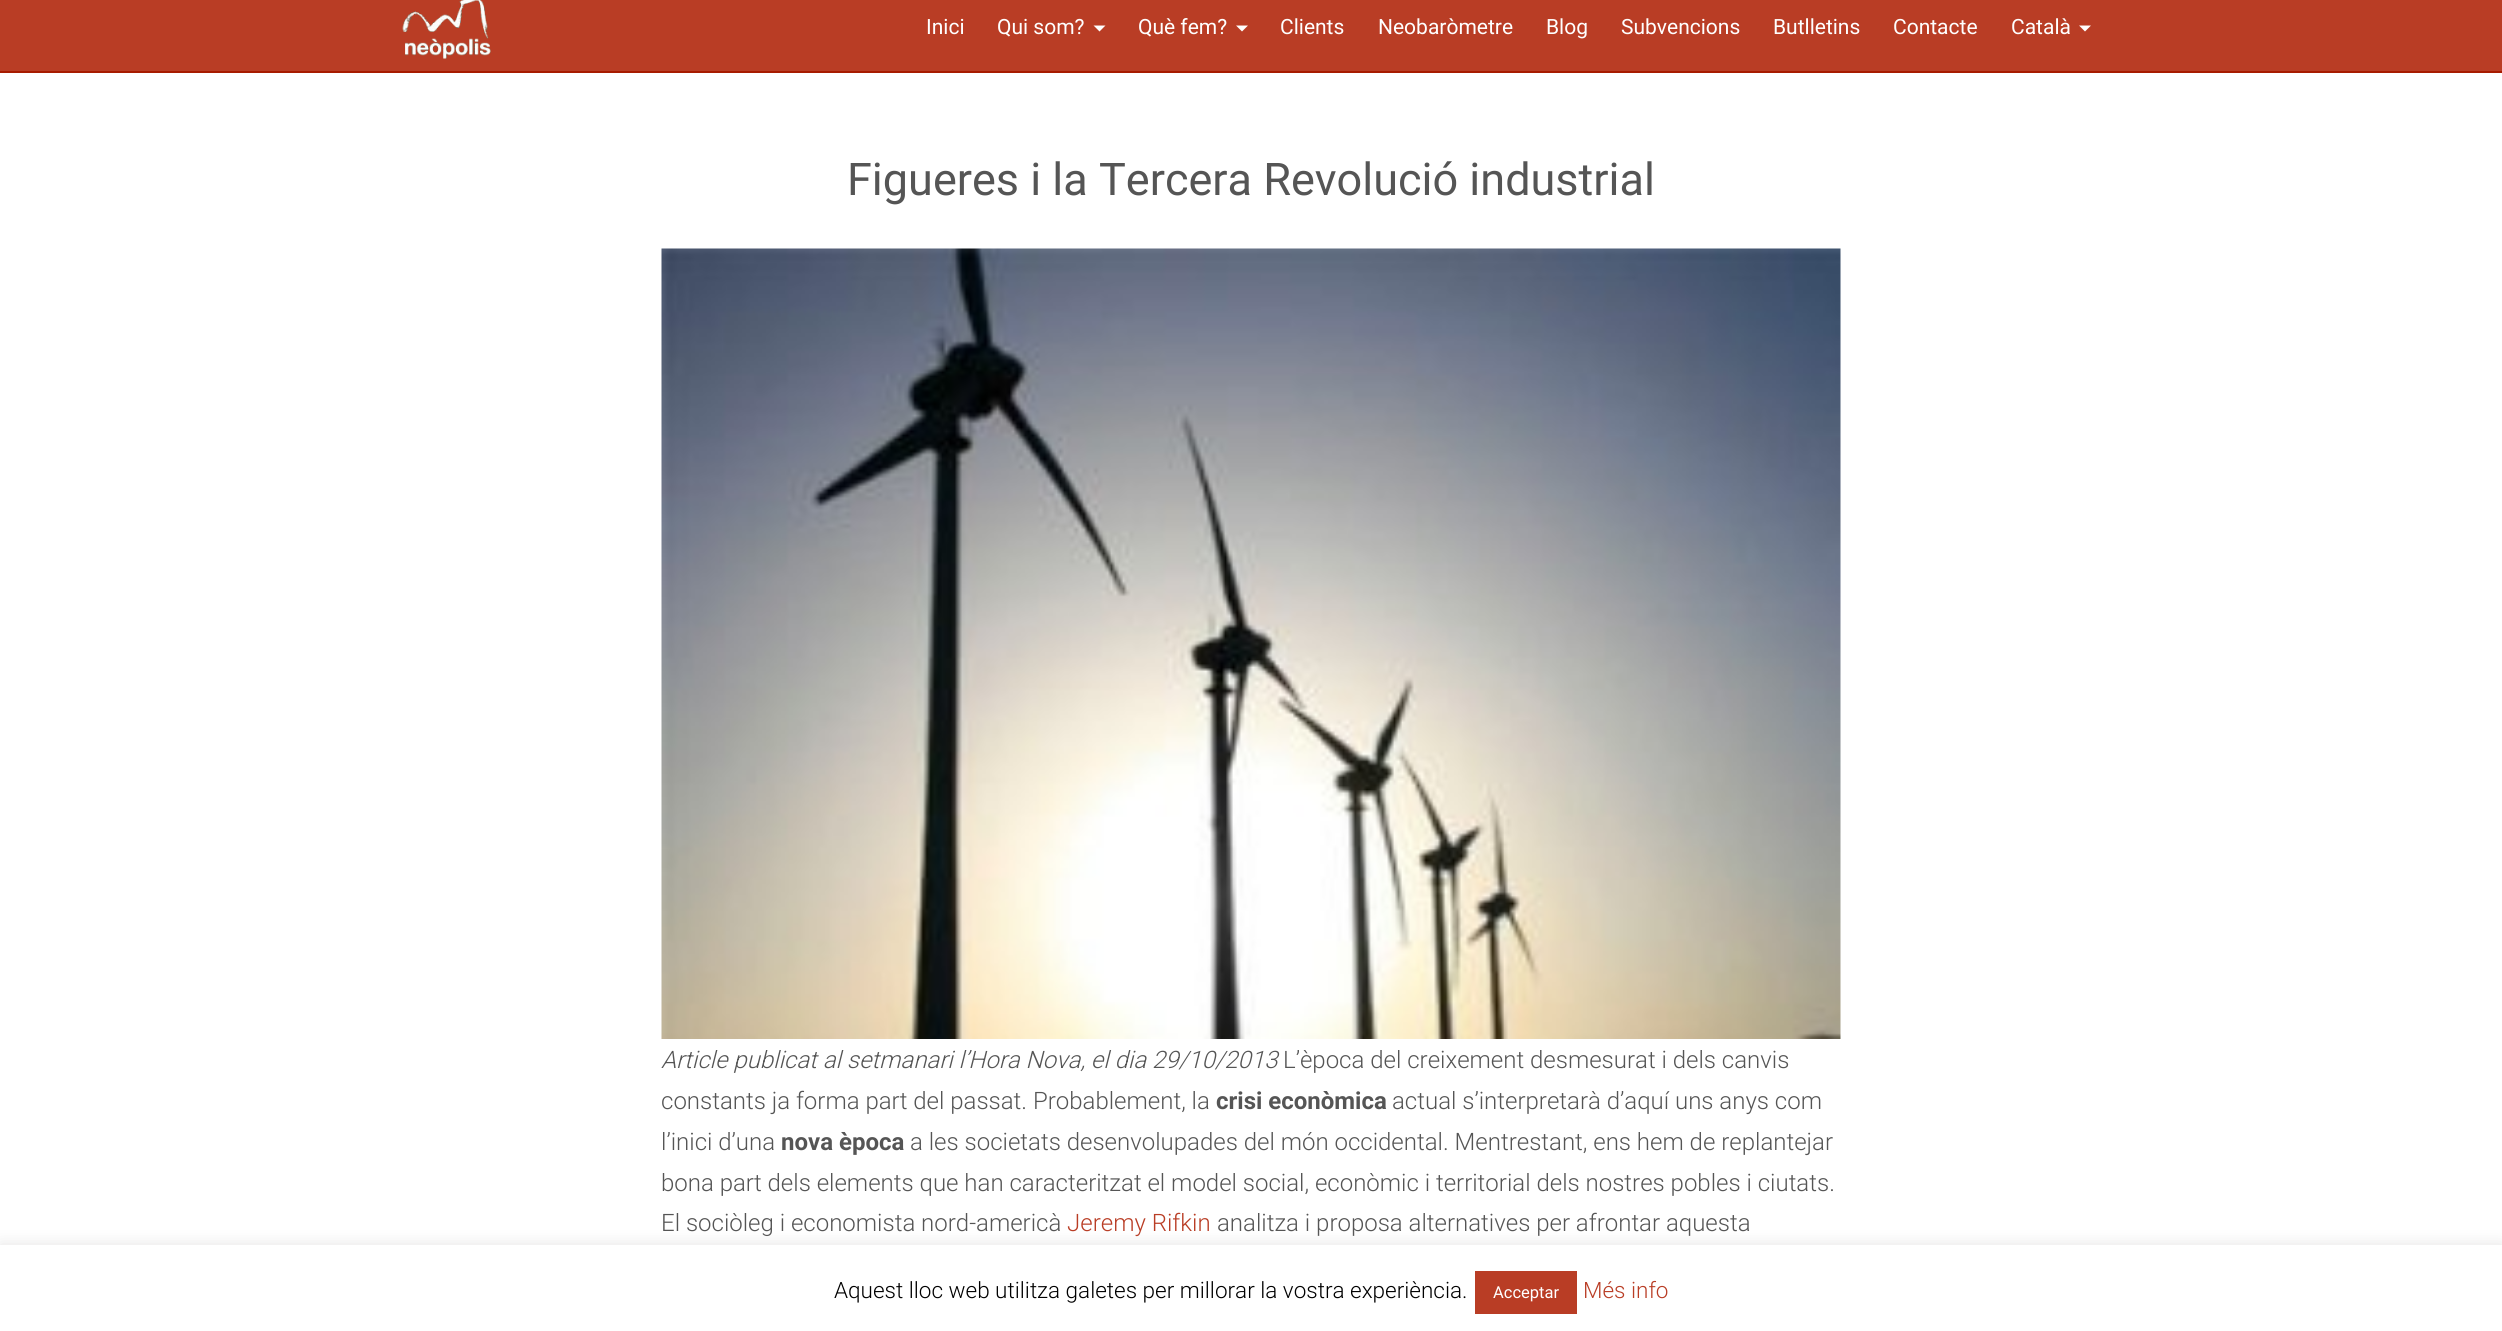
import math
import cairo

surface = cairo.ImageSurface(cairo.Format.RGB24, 2502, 1331)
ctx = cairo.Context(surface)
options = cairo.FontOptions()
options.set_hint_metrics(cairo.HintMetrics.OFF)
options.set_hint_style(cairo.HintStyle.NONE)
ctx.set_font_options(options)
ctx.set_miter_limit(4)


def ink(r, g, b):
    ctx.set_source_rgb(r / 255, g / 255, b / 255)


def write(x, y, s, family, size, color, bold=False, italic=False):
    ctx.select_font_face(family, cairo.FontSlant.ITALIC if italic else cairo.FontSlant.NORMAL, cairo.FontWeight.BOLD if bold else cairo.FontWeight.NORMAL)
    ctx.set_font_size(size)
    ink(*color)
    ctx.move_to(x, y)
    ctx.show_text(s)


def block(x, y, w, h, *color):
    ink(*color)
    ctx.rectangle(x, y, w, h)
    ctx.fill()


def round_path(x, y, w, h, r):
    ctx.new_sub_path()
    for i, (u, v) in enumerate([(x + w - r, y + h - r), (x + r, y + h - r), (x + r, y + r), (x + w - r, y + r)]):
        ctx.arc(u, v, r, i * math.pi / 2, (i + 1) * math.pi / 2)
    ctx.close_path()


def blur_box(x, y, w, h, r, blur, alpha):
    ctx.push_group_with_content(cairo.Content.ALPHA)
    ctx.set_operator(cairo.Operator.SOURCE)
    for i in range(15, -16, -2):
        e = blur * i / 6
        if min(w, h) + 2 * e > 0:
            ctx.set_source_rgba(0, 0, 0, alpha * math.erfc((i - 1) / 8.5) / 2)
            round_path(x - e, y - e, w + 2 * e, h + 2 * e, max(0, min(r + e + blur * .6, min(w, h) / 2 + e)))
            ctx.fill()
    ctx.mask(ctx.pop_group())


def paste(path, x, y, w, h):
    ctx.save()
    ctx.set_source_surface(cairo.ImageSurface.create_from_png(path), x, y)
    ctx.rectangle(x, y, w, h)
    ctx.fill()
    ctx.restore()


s1 = dict(family="Roboto", size=21, color=(255, 255, 255))
s2 = dict(family="Roboto", size=45, color=(85, 85, 85))
s3 = dict(family="Roboto Light", size=24, color=(85, 85, 85), italic=True)
s4 = dict(family="Roboto Light", size=24, color=(85, 85, 85))
s5 = dict(family="Roboto", size=24, color=(85, 85, 85), bold=True)
s6 = dict(family="Roboto Light", size=24, color=(185, 61, 37))
s7 = dict(family="Roboto Light", size=22.5, color=(0, 0, 0))
s8 = dict(family="Roboto", size=16.5, color=(255, 255, 255))
s9 = dict(family="Roboto Light", size=22.5, color=(185, 61, 37))

ink(255, 255, 255)
ctx.paint()
block(0, 0, 2502, 71, 185, 61, 37)
block(0, 71, 2502, 2, 167, 27, 0)
paste("pic1.png", 402, 0, 89, 59)
write(926, 34, "Inici", **s1)
write(997, 34, "Qui som?", **s1)
ctx.new_path()
ctx.move_to(1093.5, 25.5)
ctx.line_to(1105.5, 25.5)
ctx.line_to(1099.5, 31.5)
ctx.close_path()
ctx.fill()
write(1138, 34, "Què fem?", **s1)
ctx.new_path()
ctx.move_to(1236, 25.5)
ctx.line_to(1248, 25.5)
ctx.line_to(1242, 31.5)
ctx.close_path()
ctx.fill()
write(1280, 34, "Clients", **s1)
write(1378, 34, "Neobaròmetre", **s1)
write(1546, 34, "Blog", **s1)
write(1621, 34, "Subvencions", **s1)
write(1773, 34, "Butlletins", **s1)
write(1893, 34, "Contacte", **s1)
write(2011, 34, "Català", **s1)
ctx.new_path()
ctx.move_to(2079, 25.5)
ctx.line_to(2091, 25.5)
ctx.line_to(2085, 31.5)
ctx.close_path()
ctx.fill()
write(847, 195, "Figueres i la Tercera Revolució industrial", **s2)
paste("pic2.png", 661, 248, 1180, 791)
write(661, 1068, "Article publicat al setmanari l’Hora Nova, el dia 29/10/2013", **s3)
write(1283, 1068, "L’època del creixement desmesurat i dels canvis", **s4)
write(661, 1109, "constants ja forma part del passat. Probablement, la", **s4)
write(1216, 1109, "crisi econòmica", **s5)
write(1392, 1109, "actual s’interpretarà d’aquí uns anys com", **s4)
write(661, 1150, "l’inici d’una", **s4)
write(781, 1150, "nova època", **s5)
write(910, 1150, "a les societats desenvolupades del món occidental. Mentrestant, ens hem de replantejar", **s4)
write(661, 1191, "bona part dels elements que han caracteritzat el model social, econòmic i territorial dels nostres pobles i ciutats.", **s4)
write(661, 1231, "El sociòleg i economista nord-americà", **s4)
write(1067, 1231, "Jeremy Rifkin", **s6)
write(1217, 1231, "analitza i proposa alternatives per afrontar aquesta", **s4)
ink(172, 171, 171)
blur_box(0, 1244, 2502, 87, 0, 7.5, 0.3)
block(0, 1245, 2502, 86, 255, 255, 255)
write(834, 1298, "Aquest lloc web utilitza galetes per millorar la vostra experiència.", **s7)
block(1475, 1271, 102, 43, 185, 61, 37)
write(1493, 1298, "Acceptar", **s8)
write(1583, 1298, "Més info", **s9)
surface.write_to_png("screenshot.png")
